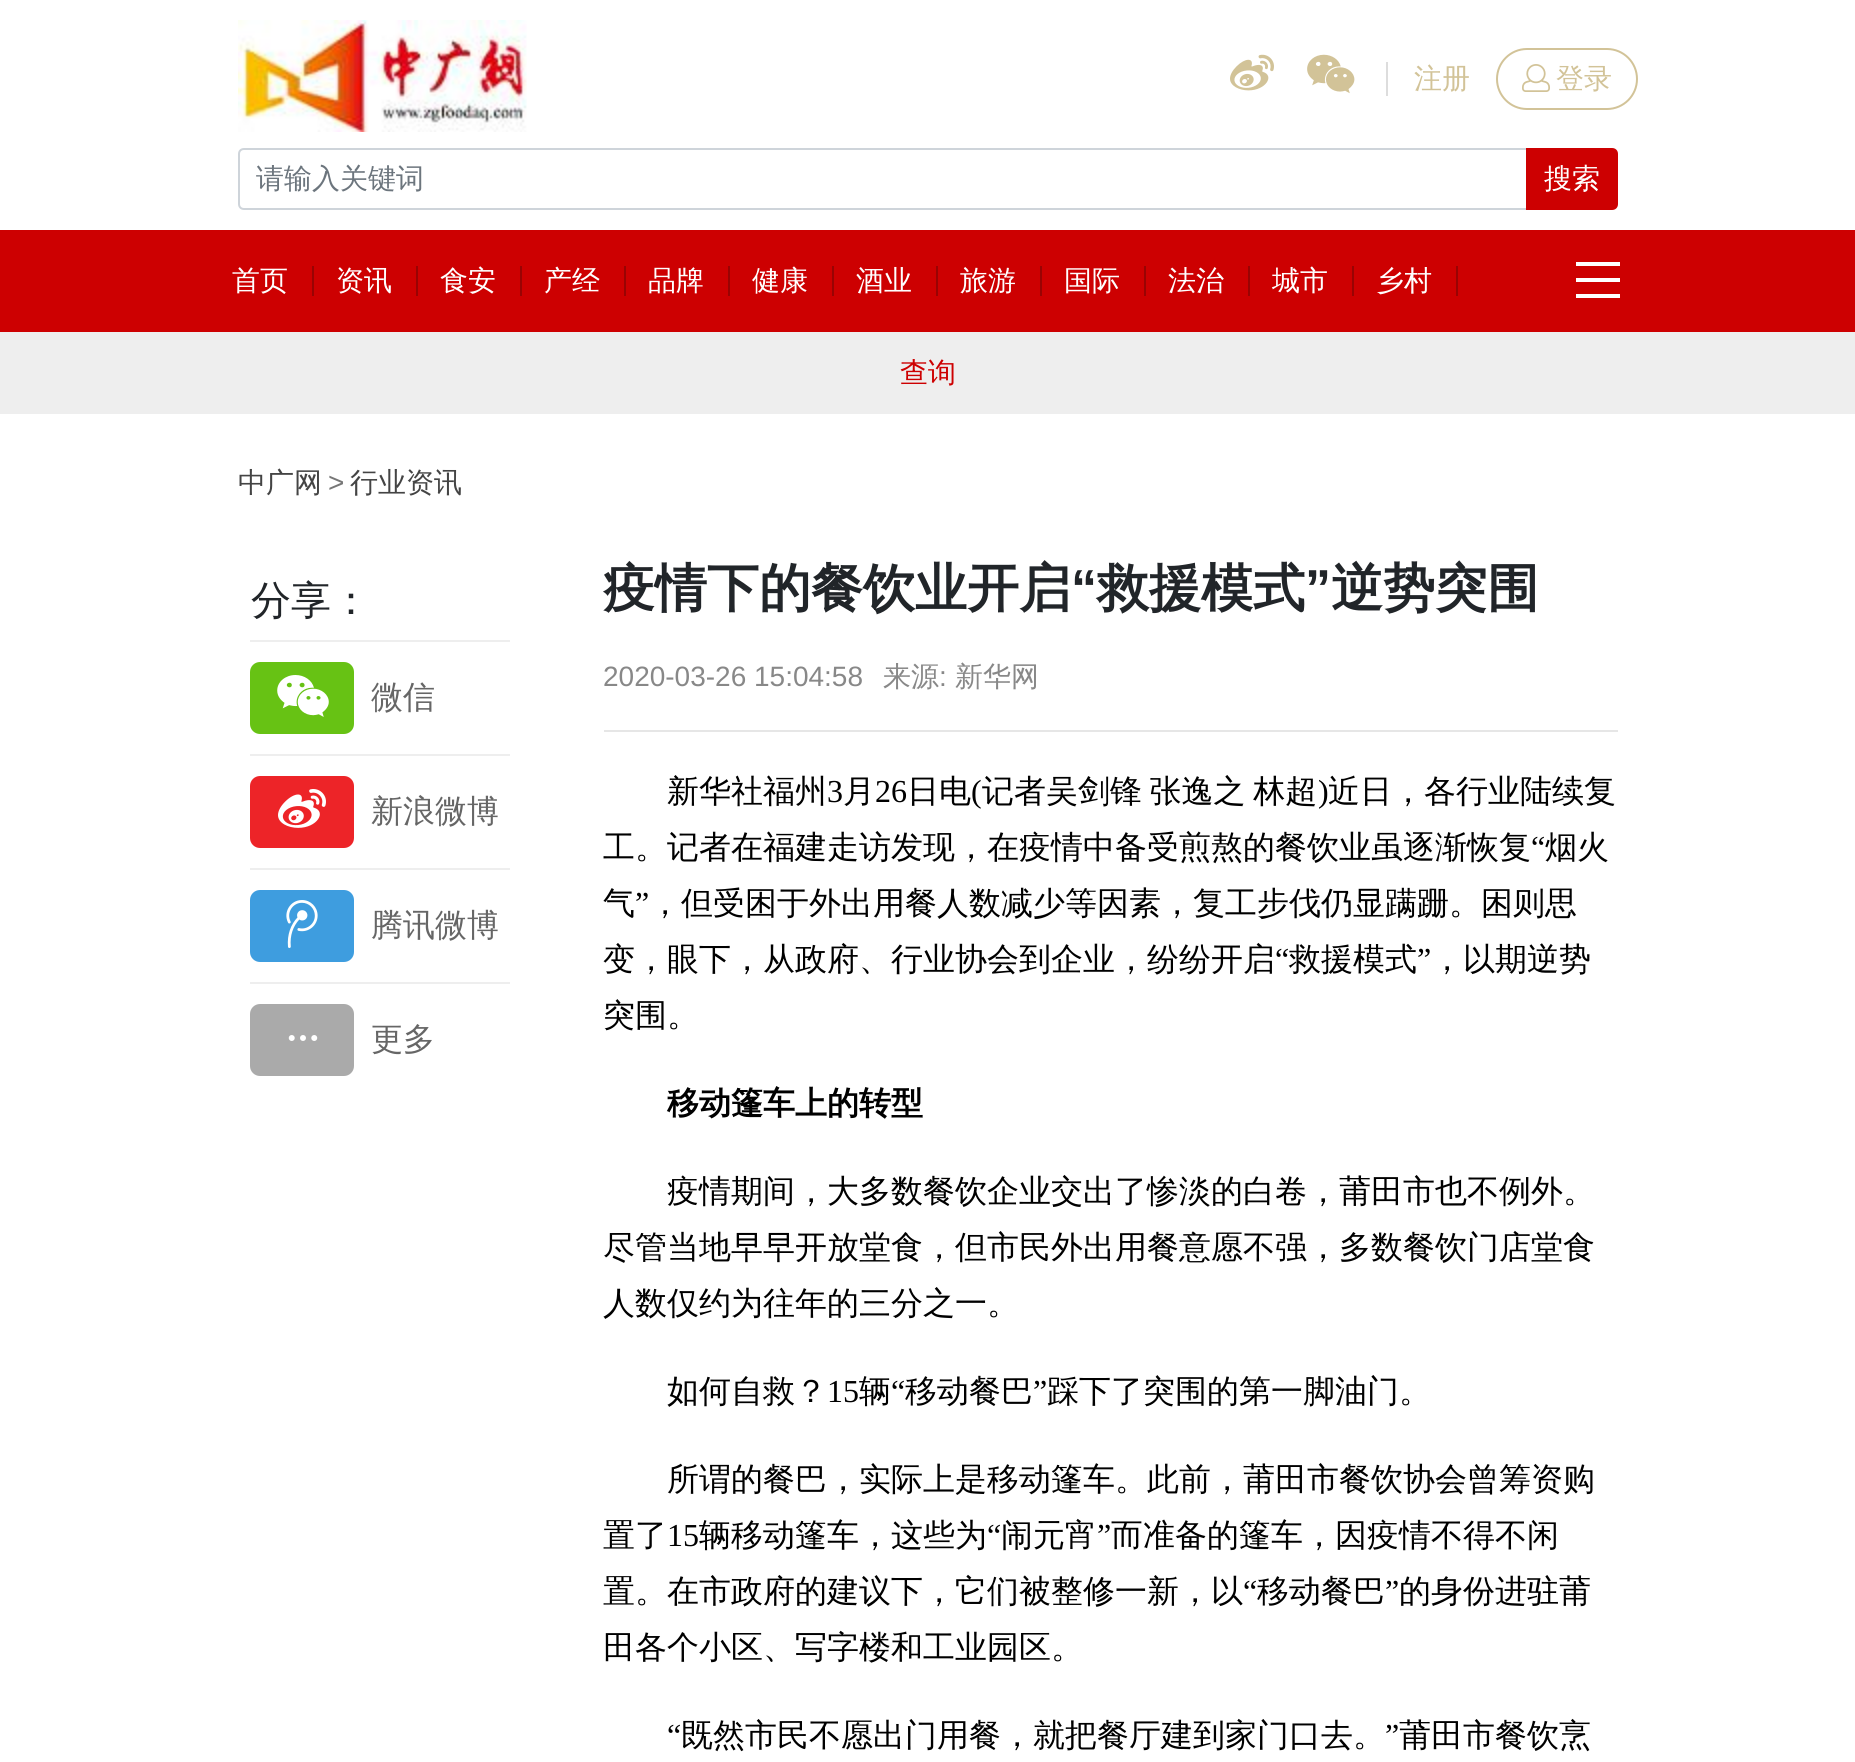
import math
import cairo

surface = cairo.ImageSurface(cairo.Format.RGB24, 1855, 1762)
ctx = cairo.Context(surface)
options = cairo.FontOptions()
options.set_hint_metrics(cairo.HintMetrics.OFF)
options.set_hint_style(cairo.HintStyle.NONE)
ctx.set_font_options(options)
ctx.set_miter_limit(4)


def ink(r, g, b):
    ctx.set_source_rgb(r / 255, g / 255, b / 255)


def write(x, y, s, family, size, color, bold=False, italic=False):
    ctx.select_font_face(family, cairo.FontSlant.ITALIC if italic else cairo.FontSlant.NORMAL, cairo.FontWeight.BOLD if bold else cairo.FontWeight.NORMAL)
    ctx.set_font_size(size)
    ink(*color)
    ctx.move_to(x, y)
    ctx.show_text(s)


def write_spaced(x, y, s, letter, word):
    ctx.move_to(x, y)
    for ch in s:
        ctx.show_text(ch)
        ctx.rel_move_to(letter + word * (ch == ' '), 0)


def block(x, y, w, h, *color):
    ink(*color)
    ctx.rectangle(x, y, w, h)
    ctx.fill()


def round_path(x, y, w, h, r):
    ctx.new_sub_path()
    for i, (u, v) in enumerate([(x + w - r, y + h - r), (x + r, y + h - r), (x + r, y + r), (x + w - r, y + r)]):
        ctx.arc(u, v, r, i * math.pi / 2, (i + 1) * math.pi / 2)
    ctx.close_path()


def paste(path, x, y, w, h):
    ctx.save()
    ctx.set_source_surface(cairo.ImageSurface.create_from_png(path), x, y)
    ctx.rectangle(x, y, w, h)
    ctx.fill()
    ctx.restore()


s1 = dict(family="WenQuanYi Zen Hei Medium", size=28, color=(210, 195, 152))
s2 = dict(family="WenQuanYi Zen Hei Medium", size=28, color=(108, 117, 125))
s3 = dict(family="WenQuanYi Zen Hei Medium", size=28, color=(255, 255, 255))
s4 = dict(family="WenQuanYi Zen Hei Medium", size=28, color=(205, 0, 1))
s5 = dict(family="WenQuanYi Zen Hei Medium", size=28, color=(68, 68, 68))
s6 = dict(family="Liberation Sans", size=28, color=(119, 119, 119))
s7 = dict(family="WenQuanYi Zen Hei Medium", size=40, color=(33, 37, 41))
s8 = dict(family="WenQuanYi Zen Hei Medium", size=32, color=(102, 102, 102))
s9 = dict(family="WenQuanYi Zen Hei", size=52, color=(33, 37, 41), bold=True)
s10 = dict(family="Liberation Sans", size=52, color=(33, 37, 41), bold=True)
s11 = dict(family="Liberation Sans", size=28, color=(136, 136, 136))
s12 = dict(family="WenQuanYi Zen Hei Medium", size=28, color=(136, 136, 136))
s13 = dict(family="WenQuanYi Zen Hei Medium", size=32, color=(0, 0, 0))
s14 = dict(family="Liberation Serif", size=32, color=(0, 0, 0))
s15 = dict(family="WenQuanYi Zen Hei", size=32, color=(0, 0, 0), bold=True)

ink(255, 255, 255)
ctx.paint()
paste("pic1.png", 238, 20, 289, 112)
paste("pic2.png", 1230, 54, 44, 37)
paste("pic3.png", 1307, 54, 48, 40)
block(1386, 62, 2, 34, 221, 221, 221)
write(1414, 88, "注册", **s1)
round_path(1497, 49, 140, 60, 30)
ctx.stroke()
paste("pic4.png", 1522, 64, 28, 28)
write(1556, 88, "登录", **s1)
ctx.new_path()
ctx.move_to(244, 149)
ctx.line_to(1527, 149)
ctx.line_to(1527, 209)
ctx.line_to(244, 209)
ctx.curve_to(241, 209, 239, 207, 239, 204)
ctx.line_to(239, 154)
ctx.curve_to(239, 151, 241, 149, 244, 149)
ctx.close_path()
ink(206, 212, 218)
ctx.stroke()
write(256, 188, "请输入关键词", **s2)
ink(205, 0, 1)
ctx.new_path()
ctx.move_to(1527, 149)
ctx.line_to(1612, 149)
ctx.curve_to(1615, 149, 1617, 151, 1617, 154)
ctx.line_to(1617, 204)
ctx.curve_to(1617, 207, 1615, 209, 1612, 209)
ctx.line_to(1527, 209)
ctx.close_path()
ctx.fill_preserve()
ctx.stroke()
write(1544, 188, "搜索", **s3)
block(0, 230, 1855, 102, 205, 0, 1)
write(232, 290, "首页", **s3)
block(312, 266, 2, 30, 153, 3, 3)
write(336, 290, "资讯", **s3)
block(416, 266, 2, 30, 153, 3, 3)
write(440, 290, "食安", **s3)
block(520, 266, 2, 30, 153, 3, 3)
write(544, 290, "产经", **s3)
block(624, 266, 2, 30, 153, 3, 3)
write(648, 290, "品牌", **s3)
block(728, 266, 2, 30, 153, 3, 3)
write(752, 290, "健康", **s3)
block(832, 266, 2, 30, 153, 3, 3)
write(856, 290, "酒业", **s3)
block(936, 266, 2, 30, 153, 3, 3)
write(960, 290, "旅游", **s3)
block(1040, 266, 2, 30, 153, 3, 3)
write(1064, 290, "国际", **s3)
block(1144, 266, 2, 30, 153, 3, 3)
write(1168, 290, "法治", **s3)
block(1248, 266, 2, 30, 153, 3, 3)
write(1272, 290, "城市", **s3)
block(1352, 266, 2, 30, 153, 3, 3)
write(1376, 290, "乡村", **s3)
block(1456, 266, 2, 30, 153, 3, 3)
block(1576, 262, 44, 4, 255, 255, 255)
block(1576, 278, 44, 4, 255, 255, 255)
block(1576, 294, 44, 4, 255, 255, 255)
block(0, 332, 1855, 82, 238, 238, 238)
write(900, 382, "查询", **s4)
write(238, 492, "中广网", **s5)
write(328, 492, ">", **s6)
write(350, 492, "行业资讯", **s5)
write(251, 614, "分享：", **s7)
block(250, 640, 260, 2, 238, 238, 238)
ink(103, 194, 20)
round_path(250, 662, 104, 72, 10)
ctx.fill()
paste("pic5.png", 277, 675, 52, 42)
write(371, 708, "微信", **s8)
block(250, 754, 260, 2, 238, 238, 238)
ink(237, 36, 40)
round_path(250, 776, 104, 72, 10)
ctx.fill()
paste("pic6.png", 278, 789, 48, 39)
write(371, 822, "新浪微博", **s8)
block(250, 868, 260, 2, 238, 238, 238)
ink(62, 157, 223)
round_path(250, 890, 104, 72, 10)
ctx.fill()
paste("pic7.png", 286, 900, 32, 48)
write(371, 936, "腾讯微博", **s8)
block(250, 982, 260, 2, 238, 238, 238)
ink(170, 170, 170)
round_path(250, 1004, 104, 72, 10)
ctx.fill()
paste("pic8.png", 288, 1035, 30, 6)
write(371, 1050, "更多", **s8)
write(603, 606, "疫情下的餐饮业开启", **s9)
write(1071, 606, "“", **s10)
write(1097, 606, "救援模式", **s9)
write(1305, 606, "”", **s10)
write(1331, 606, "逆势突围", **s9)
write(603, 686, "2020-03-26 15:04:58", **s11)
write(883, 686, "来源", **s12)
write(939, 686, ":", **s11)
write(955, 686, "新华网", **s12)
block(604, 730, 1014, 2, 230, 230, 230)
write(667, 802, "新华社福州", **s13)
write(827, 802, "3", **s14)
write(843, 802, "月", **s13)
write(875, 802, "26", **s14)
write(907, 802, "日电", **s13)
write(971, 802, "(", **s14)
ctx.select_font_face("WenQuanYi Zen Hei Medium")
write_spaced(982, 802, "记者吴剑锋 张逸之 林超", 0, -2)
write(1318, 802, ")", **s14)
write(1328, 802, "近日，各行业陆续复", **s13)
write(603, 858, "工。记者在福建走访发现，在疫情中备受煎熬的餐饮业虽逐渐恢复", **s13)
write(1531, 858, "“", **s14)
write(1545, 858, "烟火", **s13)
write(603, 914, "气", **s13)
write(635, 914, "”", **s14)
write(649, 914, "，但受困于外出用餐人数减少等因素，复工步伐仍显蹒跚。困则思", **s13)
write(603, 970, "变，眼下，从政府、行业协会到企业，纷纷开启", **s13)
write(1275, 970, "“", **s14)
write(1289, 970, "救援模式", **s13)
write(1417, 970, "”", **s14)
write(1431, 970, "，以期逆势", **s13)
write(603, 1026, "突围。", **s13)
write(667, 1114, "移动篷车上的转型", **s15)
write(667, 1202, "疫情期间，大多数餐饮企业交出了惨淡的白卷，莆田市也不例外。", **s13)
write(603, 1258, "尽管当地早早开放堂食，但市民外出用餐意愿不强，多数餐饮门店堂食", **s13)
write(603, 1314, "人数仅约为往年的三分之一。", **s13)
write(667, 1402, "如何自救？", **s13)
write(827, 1402, "15", **s14)
write(859, 1402, "辆", **s13)
write(891, 1402, "“", **s14)
write(905, 1402, "移动餐巴", **s13)
write(1033, 1402, "”", **s14)
write(1047, 1402, "踩下了突围的第一脚油门。", **s13)
write(667, 1490, "所谓的餐巴，实际上是移动篷车。此前，莆田市餐饮协会曾筹资购", **s13)
write(603, 1546, "置了", **s13)
write(667, 1546, "15", **s14)
write(699, 1546, "辆移动篷车，这些为", **s13)
write(987, 1546, "“", **s14)
write(1001, 1546, "闹元宵", **s13)
write(1097, 1546, "”", **s14)
write(1111, 1546, "而准备的篷车，因疫情不得不闲", **s13)
write(603, 1602, "置。在市政府的建议下，它们被整修一新，以", **s13)
write(1243, 1602, "“", **s14)
write(1257, 1602, "移动餐巴", **s13)
write(1385, 1602, "”", **s14)
write(1399, 1602, "的身份进驻莆", **s13)
write(603, 1658, "田各个小区、写字楼和工业园区。", **s13)
write(667, 1746, "“", **s14)
write(681, 1746, "既然市民不愿出门用餐，就把餐厅建到家门口去。", **s13)
write(1385, 1746, "”", **s14)
write(1399, 1746, "莆田市餐饮烹", **s13)
surface.write_to_png("screenshot.png")
